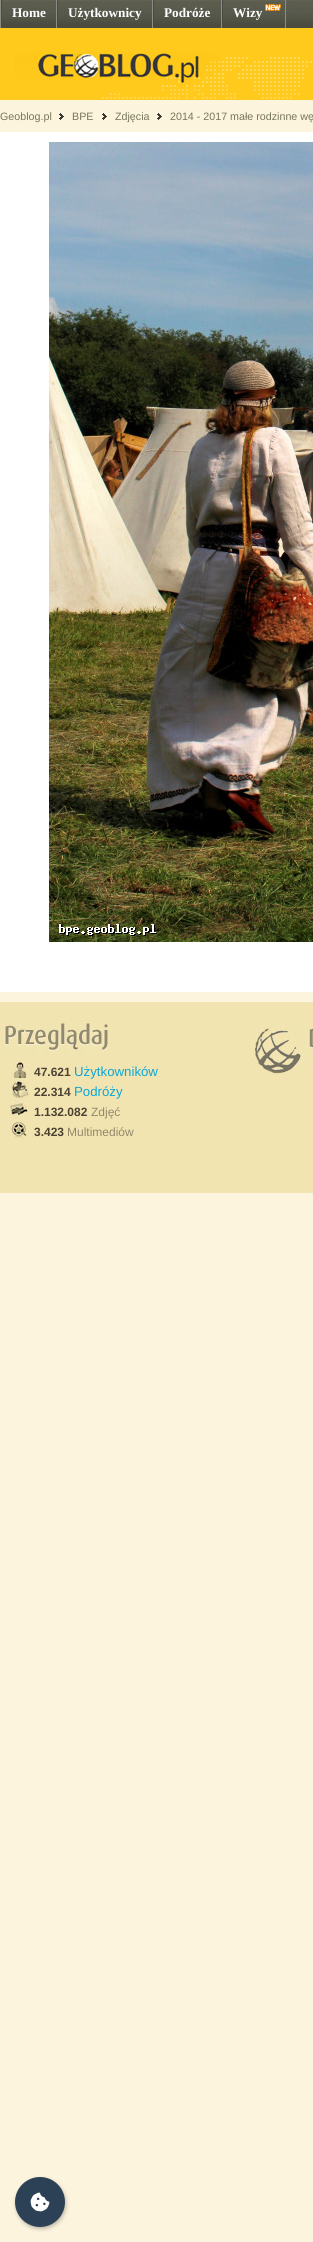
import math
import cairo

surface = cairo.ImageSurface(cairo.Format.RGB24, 313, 2242)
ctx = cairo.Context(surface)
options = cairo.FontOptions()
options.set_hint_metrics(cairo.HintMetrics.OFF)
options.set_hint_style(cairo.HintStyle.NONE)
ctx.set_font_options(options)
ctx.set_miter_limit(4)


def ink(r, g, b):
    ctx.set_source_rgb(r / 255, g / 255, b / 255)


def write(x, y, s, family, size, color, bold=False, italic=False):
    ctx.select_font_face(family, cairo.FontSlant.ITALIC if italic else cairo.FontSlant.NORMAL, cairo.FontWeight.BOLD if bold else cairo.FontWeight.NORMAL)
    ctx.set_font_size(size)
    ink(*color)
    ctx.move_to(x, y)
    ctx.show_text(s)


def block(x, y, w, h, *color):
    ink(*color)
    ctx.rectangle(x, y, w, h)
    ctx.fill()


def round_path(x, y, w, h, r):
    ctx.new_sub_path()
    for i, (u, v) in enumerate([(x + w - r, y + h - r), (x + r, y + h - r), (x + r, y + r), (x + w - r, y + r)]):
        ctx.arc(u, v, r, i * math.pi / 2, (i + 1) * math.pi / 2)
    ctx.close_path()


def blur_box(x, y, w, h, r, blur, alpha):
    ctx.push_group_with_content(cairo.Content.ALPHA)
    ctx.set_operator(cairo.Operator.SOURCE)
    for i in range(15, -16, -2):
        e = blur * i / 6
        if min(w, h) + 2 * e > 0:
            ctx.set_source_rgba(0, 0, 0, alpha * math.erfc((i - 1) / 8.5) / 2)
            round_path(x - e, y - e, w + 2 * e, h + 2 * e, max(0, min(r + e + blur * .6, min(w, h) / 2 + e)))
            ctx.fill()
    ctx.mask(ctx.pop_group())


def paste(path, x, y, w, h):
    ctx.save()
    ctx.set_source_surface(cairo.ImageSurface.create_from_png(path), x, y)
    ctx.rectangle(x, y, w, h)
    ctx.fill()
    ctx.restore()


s1 = dict(family="Liberation Serif", size=13.25, color=(255, 255, 255), bold=True)
s2 = dict(family="Liberation Sans", size=10.7, color=(118, 118, 92))
s3 = dict(family="Liberation Sans", size=12, color=(75, 66, 51), bold=True)
s4 = dict(family="Liberation Sans", size=13.25, color=(11, 167, 216))
s5 = dict(family="Liberation Sans", size=12, color=(146, 136, 106))

ink(252, 244, 221)
ctx.paint()
paste("pic1.png", 2, 0, 311, 28)
block(0, 0, 1, 28, 140, 141, 131)
block(56, 0, 1, 28, 140, 141, 131)
block(1, 0, 1, 28, 73, 74, 65)
write(12, 17, "Home", **s1)
block(152, 0, 1, 28, 140, 141, 131)
block(57, 0, 1, 28, 73, 74, 65)
write(68, 17, "Użytkownicy", **s1)
block(221, 0, 1, 28, 140, 141, 131)
block(153, 0, 1, 28, 73, 74, 65)
write(164, 17, "Podróże", **s1)
block(285, 0, 1, 28, 140, 141, 131)
block(222, 0, 1, 28, 73, 74, 65)
write(233, 17, "Wizy", **s1)
paste("pic2.png", 265, 4, 16, 7)
block(0, 28, 313, 24, 255, 202, 28)
paste("pic3.png", 0, 52, 313, 48)
write(0, 120, "Geoblog.pl", **s2)
paste("pic4.png", 59, 113, 5, 7)
write(72, 120, "BPE", **s2)
paste("pic4.png", 102, 113, 5, 7)
write(115, 120, "Zdjęcia", **s2)
paste("pic4.png", 157, 113, 5, 7)
write(170, 120, "2014 - 2017 małe rodzinne wę", **s2)
block(0, 132, 313, 860, 255, 255, 255)
paste("pic5.png", 49, 142, 264, 800)
block(0, 1002, 313, 191, 242, 228, 177)
paste("pic6.png", 252, 1024, 52, 52)
paste("pic7.png", 305, 1024, 8, 30)
paste("pic8.png", 310, 1058, 3, 12)
paste("pic9.png", 4, 1022, 104, 32)
paste("pic10.png", 11, 1062, 16, 16)
write(34, 1076, "47.621", **s3)
write(74, 1076, "Użytkowników", **s4)
paste("pic11.png", 11, 1081, 18, 17)
write(34, 1096, "22.314", **s3)
write(74, 1096, "Podróży", **s4)
paste("pic12.png", 10, 1102, 19, 16)
write(34, 1116, "1.132.082", **s3)
write(91, 1116, "Zdjęć", **s5)
paste("pic13.png", 11, 1121, 16, 17)
write(34, 1136, "3.423", **s3)
write(67, 1136, "Multimediów", **s5)
ink(0, 0, 0)
blur_box(16, 2179, 50, 50, 25, 2, 0.25)
ink(45, 65, 86)
ctx.arc(40, 2202, 25, 0, 2 * math.pi)
ctx.fill()
paste("pic14.png", 30, 2192, 20, 20)
surface.write_to_png("screenshot.png")
